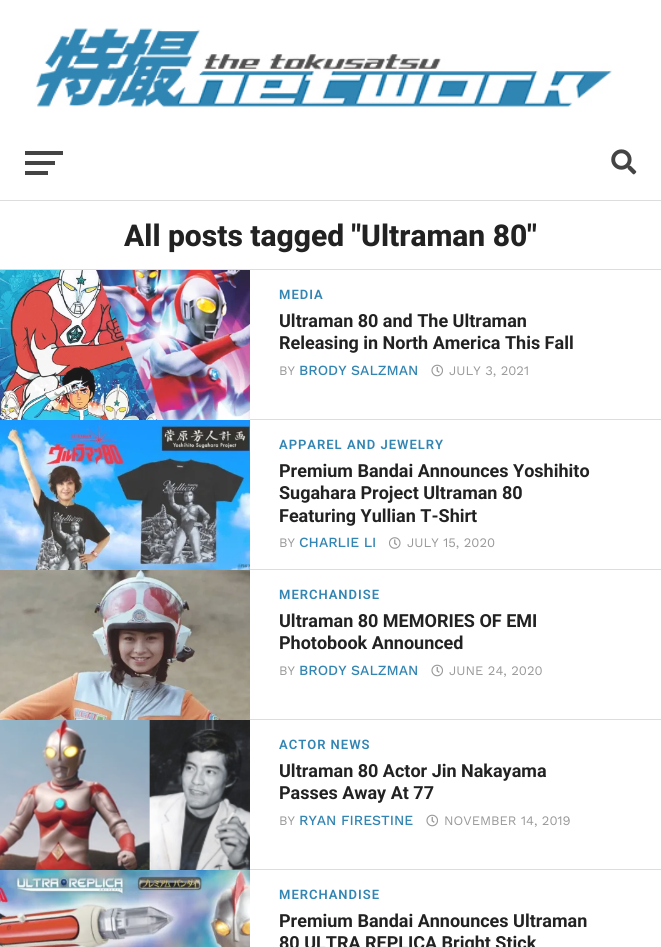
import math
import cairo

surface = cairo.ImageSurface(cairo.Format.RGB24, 661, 947)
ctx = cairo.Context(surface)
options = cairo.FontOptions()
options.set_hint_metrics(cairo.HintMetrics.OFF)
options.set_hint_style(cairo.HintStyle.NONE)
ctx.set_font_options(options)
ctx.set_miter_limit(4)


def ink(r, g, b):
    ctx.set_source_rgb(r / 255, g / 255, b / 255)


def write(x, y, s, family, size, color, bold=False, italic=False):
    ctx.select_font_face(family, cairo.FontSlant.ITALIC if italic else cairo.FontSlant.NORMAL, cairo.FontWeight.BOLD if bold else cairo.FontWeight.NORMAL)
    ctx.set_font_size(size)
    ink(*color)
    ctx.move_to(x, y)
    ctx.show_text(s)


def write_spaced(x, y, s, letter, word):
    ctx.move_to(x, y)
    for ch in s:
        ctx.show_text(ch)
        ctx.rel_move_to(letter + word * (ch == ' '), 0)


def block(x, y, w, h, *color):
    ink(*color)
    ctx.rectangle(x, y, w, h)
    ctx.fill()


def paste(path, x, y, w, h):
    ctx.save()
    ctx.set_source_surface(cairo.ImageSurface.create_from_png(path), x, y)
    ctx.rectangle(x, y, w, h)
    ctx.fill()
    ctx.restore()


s1 = dict(family="Roboto ExtraBold", size=30, color=(34, 34, 34))
s2 = dict(family="Roboto", size=18, color=(34, 34, 34), bold=True)
s3 = dict(family="Work Sans", size=13, color=(153, 153, 153))
s4 = dict(family="Work Sans Medium", size=14, color=(50, 133, 179))

ink(255, 255, 255)
ctx.paint()
paste("pic1.png", 35, 28, 577, 79)
block(25, 151, 38, 4, 68, 68, 68)
block(25, 161, 30, 4, 68, 68, 68)
block(25, 171, 23, 4, 68, 68, 68)
paste("pic2.png", 611, 149, 26, 26)
block(0, 200, 661, 1, 221, 221, 221)
write(124, 246, "All posts tagged \"Ultraman 80\"", **s1)
block(0, 269, 661, 1, 221, 221, 221)
paste("pic3.png", 0, 270, 250, 150)
block(250, 419, 411, 1, 221, 221, 221)
ctx.select_font_face("Roboto SemiBold")
ctx.set_font_size(13)
ink(50, 133, 179)
write_spaced(279, 299, "MEDIA", 1, 0)
write(279, 327, "Ultraman 80 and The Ultraman", **s2)
write(279, 349, "Releasing in North America This Fall", **s2)
write(279, 375, "BY", **s3)
write(299, 375, "BRODY SALZMAN", **s4)
paste("pic4.png", 431, 364, 12, 13)
write(449, 375, "JULY 3, 2021", **s3)
paste("pic5.png", 0, 420, 250, 150)
block(250, 569, 411, 1, 221, 221, 221)
ctx.select_font_face("Roboto SemiBold")
ink(50, 133, 179)
write_spaced(279, 449, "APPAREL AND JEWELRY", 1, 0)
write(279, 477, "Premium Bandai Announces Yoshihito", **s2)
write(279, 499, "Sugahara Project Ultraman 80", **s2)
write(279, 522, "Featuring Yullian T-Shirt", **s2)
write(279, 547, "BY", **s3)
write(299, 547, "CHARLIE LI", **s4)
paste("pic6.png", 389, 537, 12, 12)
write(407, 547, "JULY 15, 2020", **s3)
paste("pic7.png", 0, 570, 250, 150)
block(250, 719, 411, 1, 221, 221, 221)
ctx.select_font_face("Roboto SemiBold")
ink(50, 133, 179)
write_spaced(279, 599, "MERCHANDISE", 1, 0)
write(279, 627, "Ultraman 80 MEMORIES OF EMI", **s2)
write(279, 649, "Photobook Announced", **s2)
write(279, 675, "BY", **s3)
write(299, 675, "BRODY SALZMAN", **s4)
paste("pic4.png", 431, 664, 12, 13)
write(449, 675, "JUNE 24, 2020", **s3)
paste("pic8.png", 0, 720, 250, 150)
block(250, 869, 411, 1, 221, 221, 221)
ctx.select_font_face("Roboto SemiBold")
ink(50, 133, 179)
write_spaced(279, 749, "ACTOR NEWS", 1, 0)
write(279, 777, "Ultraman 80 Actor Jin Nakayama", **s2)
write(279, 799, "Passes Away At 77", **s2)
write(279, 825, "BY", **s3)
write(299, 825, "RYAN FIRESTINE", **s4)
paste("pic4.png", 426, 814, 12, 13)
write(444, 825, "NOVEMBER 14, 2019", **s3)
paste("pic9.png", 0, 870, 250, 77)
ctx.select_font_face("Roboto SemiBold")
ink(50, 133, 179)
write_spaced(279, 899, "MERCHANDISE", 1, 0)
write(279, 927, "Premium Bandai Announces Ultraman", **s2)
write(279, 949, "80 ULTRA REPLICA Bright Stick", **s2)
surface.write_to_png("screenshot.png")
